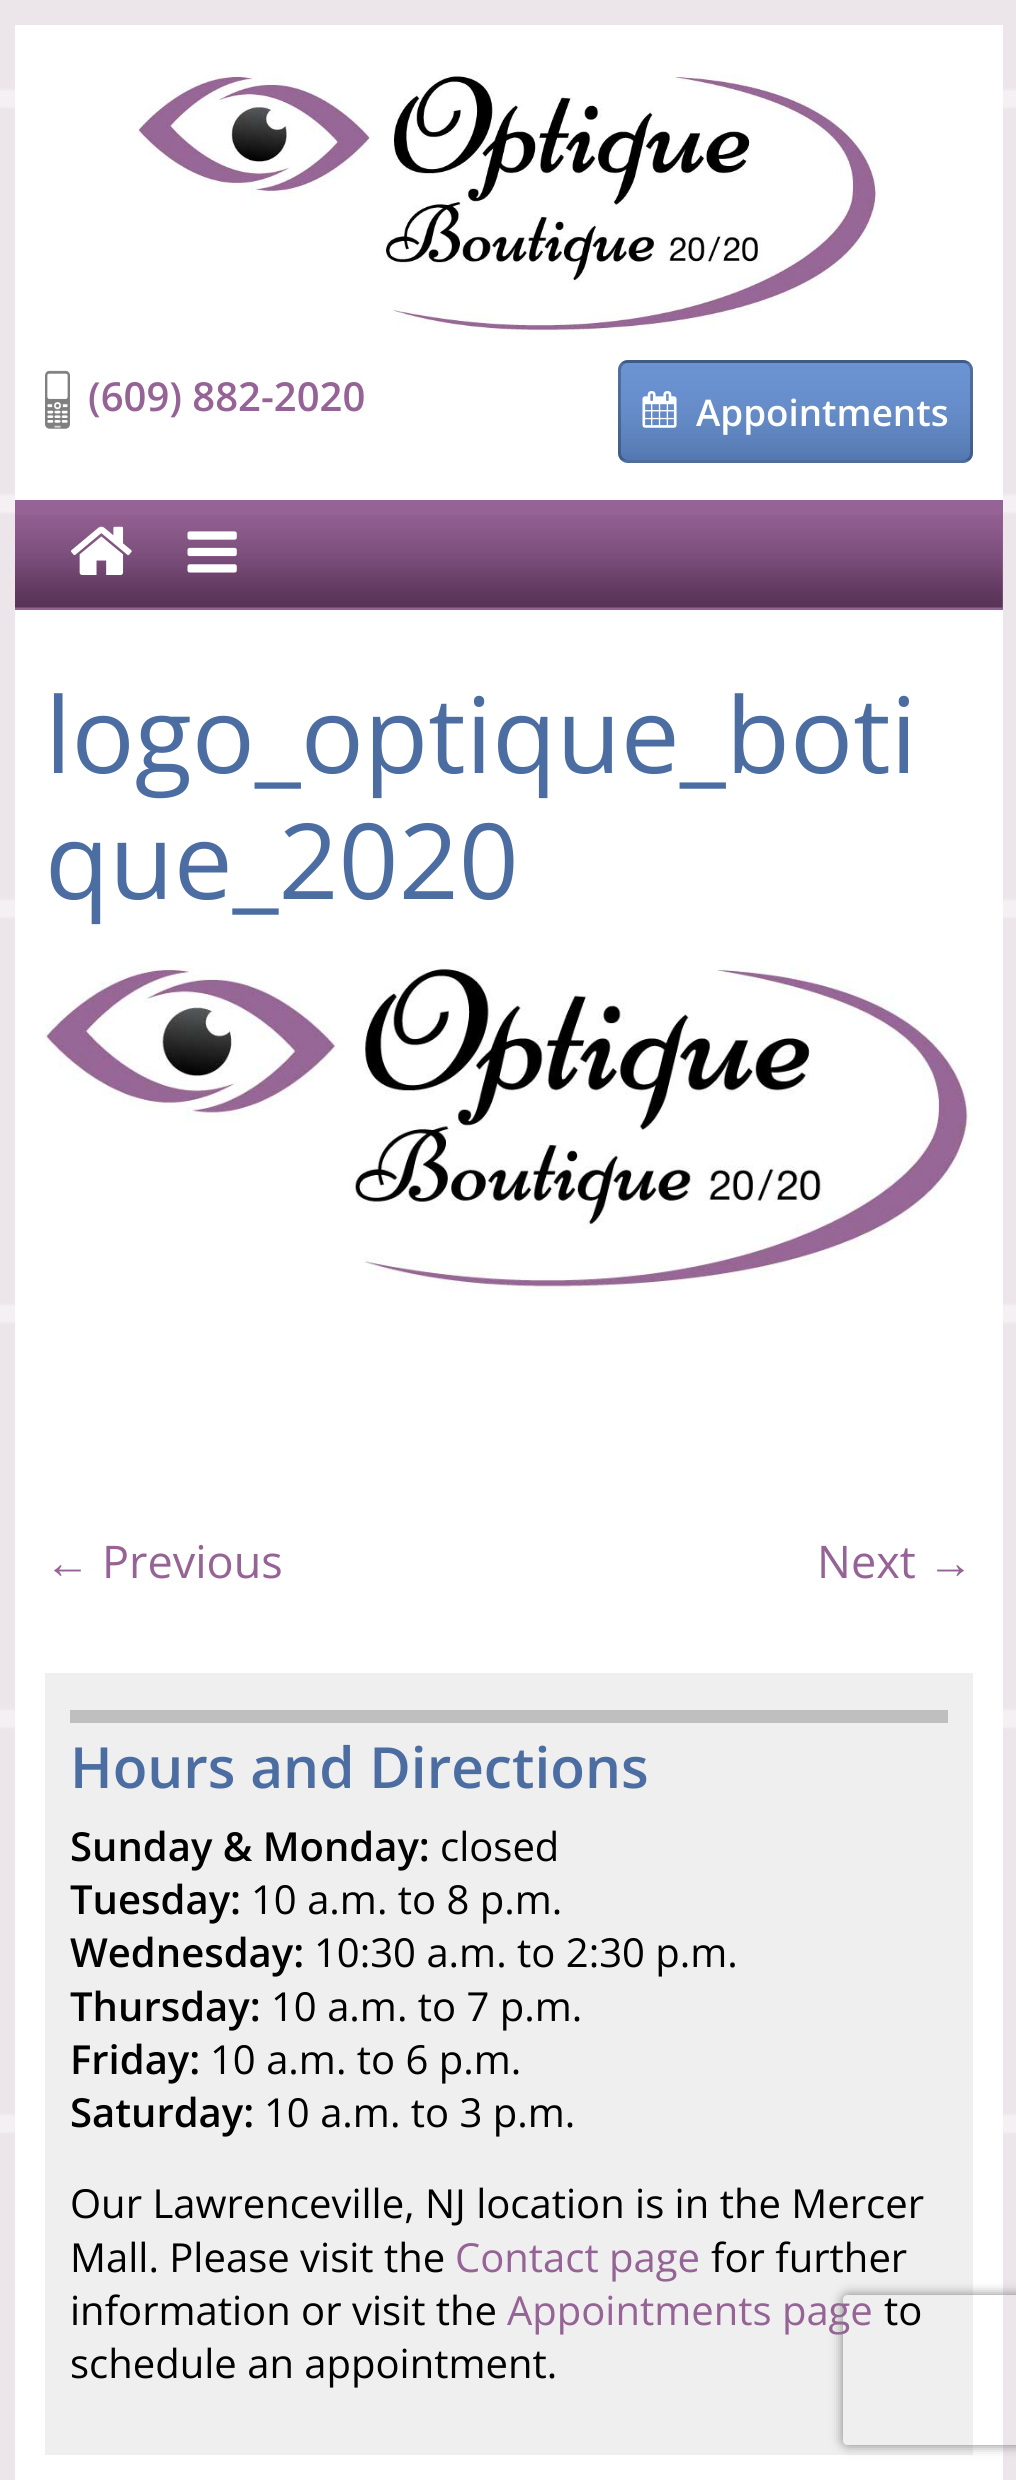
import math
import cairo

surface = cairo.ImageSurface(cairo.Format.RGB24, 1016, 2480)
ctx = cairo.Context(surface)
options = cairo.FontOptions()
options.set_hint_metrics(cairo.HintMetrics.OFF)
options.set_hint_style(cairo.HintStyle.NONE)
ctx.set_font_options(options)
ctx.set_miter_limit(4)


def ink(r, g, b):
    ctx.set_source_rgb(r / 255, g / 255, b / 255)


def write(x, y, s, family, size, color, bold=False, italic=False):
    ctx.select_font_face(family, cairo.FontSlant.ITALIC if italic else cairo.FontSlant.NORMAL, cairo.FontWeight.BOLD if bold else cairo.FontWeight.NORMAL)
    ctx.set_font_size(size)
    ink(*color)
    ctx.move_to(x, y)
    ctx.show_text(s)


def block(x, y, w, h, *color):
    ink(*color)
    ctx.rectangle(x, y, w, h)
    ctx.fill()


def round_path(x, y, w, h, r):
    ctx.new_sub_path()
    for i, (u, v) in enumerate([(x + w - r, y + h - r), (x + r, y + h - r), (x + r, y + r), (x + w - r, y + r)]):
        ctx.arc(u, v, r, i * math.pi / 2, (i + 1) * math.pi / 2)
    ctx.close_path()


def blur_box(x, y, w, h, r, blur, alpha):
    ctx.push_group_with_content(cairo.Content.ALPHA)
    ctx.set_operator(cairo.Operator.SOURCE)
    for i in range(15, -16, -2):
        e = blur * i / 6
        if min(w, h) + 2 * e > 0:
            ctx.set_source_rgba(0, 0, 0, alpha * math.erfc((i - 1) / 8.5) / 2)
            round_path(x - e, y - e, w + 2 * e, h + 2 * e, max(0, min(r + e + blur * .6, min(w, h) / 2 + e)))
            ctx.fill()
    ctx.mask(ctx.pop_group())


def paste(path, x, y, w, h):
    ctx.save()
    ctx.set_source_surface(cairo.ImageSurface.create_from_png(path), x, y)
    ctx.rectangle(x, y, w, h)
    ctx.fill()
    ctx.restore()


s1 = dict(family="Open Sans SemiBold", size=40, color=(149, 99, 149))
s2 = dict(family="Open Sans SemiBold", size=36.75, color=(255, 255, 255))
s3 = dict(family="Open Sans", size=105, color=(75, 109, 161))
s4 = dict(family="Liberation Serif", size=45, color=(149, 99, 149))
s5 = dict(family="Open Sans", size=45, color=(149, 99, 149))
s6 = dict(family="Open Sans SemiBold", size=56.75, color=(75, 109, 161))
s7 = dict(family="Open Sans SemiBold", size=40, color=(0, 0, 0))
s8 = dict(family="Open Sans", size=40, color=(0, 0, 0))
s9 = dict(family="Open Sans", size=40, color=(149, 99, 149))

ink(255, 255, 255)
ctx.paint()
paste("pic1.png", 0, 0, 1016, 2480)
block(15, 25, 988, 475, 255, 255, 255)
paste("pic2.png", 137, 75, 743, 260)
paste("pic3.png", 45, 370, 25, 59)
write(88, 411, "(609) 882-2020", **s1)
ink(98, 141, 208)
round_path(618, 360, 355, 103, 10)
ctx.fill()
ctx.save()
round_path(618, 360, 355, 103, 10)
ctx.clip()
gradient = cairo.LinearGradient(795, 265, 795, 363)
gradient.add_color_stop_rgba(0, 1, 1, 1, 0.05)
gradient.add_color_stop_rgba(1, 0, 0, 0, 0.15)
ctx.set_source(gradient)
ctx.rectangle(618, 360, 355, 3)
ctx.fill()
gradient = cairo.LinearGradient(795, 363, 795, 460)
gradient.add_color_stop_rgba(0, 1, 1, 1, 0.05)
gradient.add_color_stop_rgba(1, 0, 0, 0, 0.15)
ctx.set_source(gradient)
ctx.rectangle(618, 363, 355, 97)
ctx.fill()
ctx.restore()
gradient = cairo.LinearGradient(795, 460, 795, 558)
gradient.add_color_stop_rgba(0, 1, 1, 1, 0.05)
gradient.add_color_stop_rgba(1, 0, 0, 0, 0.15)
ctx.set_source(gradient)
ctx.rectangle(618, 460, 355, 3)
ctx.fill()
round_path(619.5, 361.5, 352, 100, 8.5)
ctx.set_source_rgba(0, 0, 0, 0.25)
ctx.set_line_width(3)
ctx.stroke()
paste("pic4.png", 642, 391, 35, 37)
write(696, 426, "Appointments", **s2)
block(15, 500, 988, 110, 149, 99, 149)
paste("pic5.png", 15, 515, 988, 93)
paste("pic6.png", 71, 526, 61, 49)
paste("pic7.png", 187, 531, 50, 42)
block(15, 610, 988, 1870, 255, 255, 255)
write(45, 773, "logo_optique_boti", **s3)
write(45, 899, "que_2020", **s3)
paste("pic8.png", 45, 967, 927, 326)
write(45, 1578, "←", **s4)
write(102, 1578, "Previous", **s5)
write(817, 1578, "Next", **s5)
write(928, 1578, "→", **s4)
block(45, 1673, 928, 782, 239, 239, 239)
block(70, 1710, 878, 13, 191, 191, 191)
write(70, 1788, "Hours and Directions", **s6)
write(70, 1861, "Sunday & Monday:", **s7)
write(440, 1861, "closed", **s8)
write(70, 1914, "Tuesday:", **s7)
write(251, 1914, "10 a.m. to 8 p.m.", **s8)
write(70, 1967, "Wednesday:", **s7)
write(314, 1967, "10:30 a.m. to 2:30 p.m.", **s8)
write(70, 2021, "Thursday:", **s7)
write(271, 2021, "10 a.m. to 7 p.m.", **s8)
write(70, 2074, "Friday:", **s7)
write(210, 2074, "10 a.m. to 6 p.m.", **s8)
write(70, 2127, "Saturday:", **s7)
write(264, 2127, "10 a.m. to 3 p.m.", **s8)
write(70, 2218, "Our Lawrenceville, NJ location is in the Mercer", **s8)
write(70, 2272, "Mall. Please visit the", **s8)
write(455, 2272, "Contact page", **s9)
write(711, 2272, "for further", **s8)
write(70, 2325, "information or visit the", **s8)
write(507, 2325, "Appointments page", **s9)
write(884, 2325, "to", **s8)
write(70, 2378, "schedule an appointment.", **s8)
ctx.save()
ctx.set_fill_rule(cairo.FillRule.EVEN_ODD)
ctx.new_path()
ctx.move_to(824, 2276)
ctx.line_to(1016, 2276)
ctx.line_to(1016, 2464)
ctx.line_to(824, 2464)
ctx.close_path()
ctx.move_to(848, 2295)
ctx.line_to(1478, 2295)
ctx.curve_to(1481, 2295, 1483, 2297, 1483, 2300)
ctx.line_to(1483, 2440)
ctx.curve_to(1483, 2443, 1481, 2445, 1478, 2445)
ctx.line_to(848, 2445)
ctx.curve_to(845, 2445, 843, 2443, 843, 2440)
ctx.line_to(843, 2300)
ctx.curve_to(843, 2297, 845, 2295, 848, 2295)
ctx.close_path()
ctx.clip()
ink(128, 128, 128)
blur_box(843, 2295, 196, 150, 5, 6, 1)
ctx.restore()
surface.write_to_png("screenshot.png")
